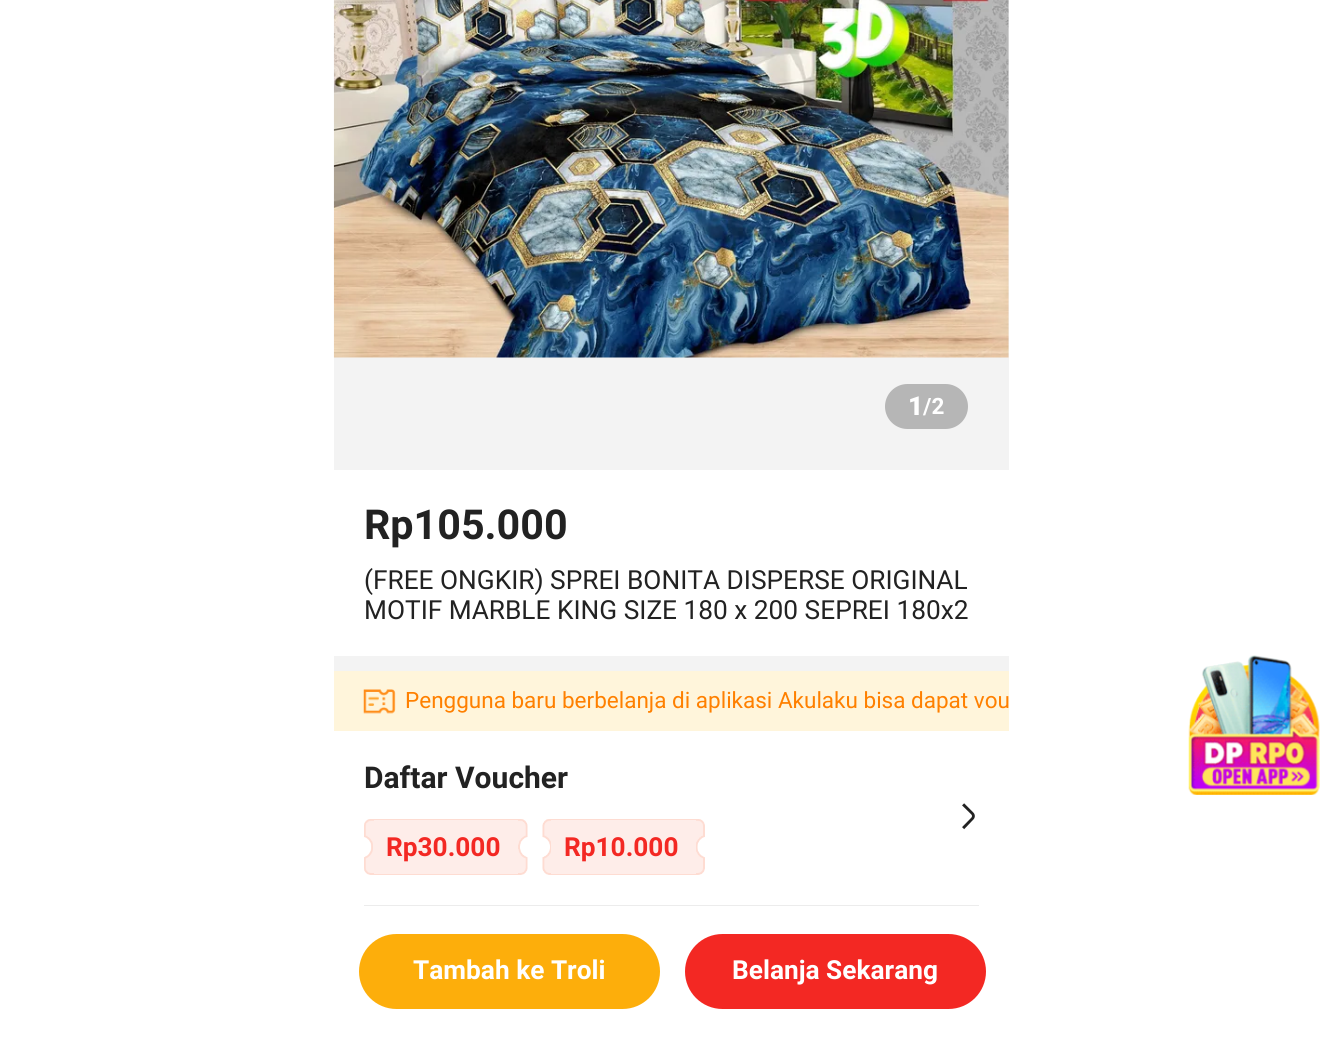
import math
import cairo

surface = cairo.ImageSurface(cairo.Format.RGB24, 1342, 1050)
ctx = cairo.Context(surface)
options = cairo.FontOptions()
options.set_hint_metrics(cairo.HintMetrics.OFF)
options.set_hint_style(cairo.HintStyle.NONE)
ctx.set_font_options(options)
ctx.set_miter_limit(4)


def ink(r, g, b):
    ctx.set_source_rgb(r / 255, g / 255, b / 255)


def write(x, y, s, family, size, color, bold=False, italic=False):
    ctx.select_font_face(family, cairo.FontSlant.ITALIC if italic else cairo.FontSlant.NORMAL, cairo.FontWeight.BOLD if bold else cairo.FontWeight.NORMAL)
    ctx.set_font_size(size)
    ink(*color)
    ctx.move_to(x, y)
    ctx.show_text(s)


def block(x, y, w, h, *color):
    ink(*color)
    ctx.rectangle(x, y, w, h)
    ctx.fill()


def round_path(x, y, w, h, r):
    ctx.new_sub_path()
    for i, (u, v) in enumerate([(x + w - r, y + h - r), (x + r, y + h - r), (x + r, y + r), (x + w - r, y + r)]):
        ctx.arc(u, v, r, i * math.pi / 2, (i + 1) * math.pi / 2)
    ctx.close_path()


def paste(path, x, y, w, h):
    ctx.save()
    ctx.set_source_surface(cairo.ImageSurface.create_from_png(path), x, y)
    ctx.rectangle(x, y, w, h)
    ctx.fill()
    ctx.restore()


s1 = dict(family="Roboto Black", size=26.25, color=(255, 255, 255))
s2 = dict(family="Roboto", size=22.5, color=(255, 255, 255), bold=True)
s3 = dict(family="Roboto", size=41.25, color=(34, 34, 34), bold=True)
s4 = dict(family="Roboto", size=26.25, color=(34, 34, 34))
s5 = dict(family="Roboto", size=22.5, color=(255, 128, 0))
s6 = dict(family="Roboto", size=30, color=(34, 34, 34), bold=True)
s7 = dict(family="Roboto", size=26.25, color=(243, 40, 35), bold=True)
s8 = dict(family="Roboto", size=26.25, color=(255, 255, 255), bold=True)

ink(255, 255, 255)
ctx.paint()
block(334, 0, 675, 671, 243, 243, 243)
paste("pic1.png", 333, 0, 676, 358)
ink(182, 182, 182)
round_path(885, 384, 83, 45, 22.5)
ctx.fill()
write(908, 415, "1", **s1)
write(923, 414, "/2", **s2)
block(334, 470, 675, 186, 255, 255, 255)
write(364, 539, "Rp105.000", **s3)
write(364, 589, "(FREE ONGKIR) SPREI BONITA DISPERSE ORIGINAL", **s4)
write(364, 619, "MOTIF MARBLE KING SIZE 180 x 200 SEPREI 180x2", **s4)
block(334, 671, 675, 60, 255, 245, 219)
paste("pic2.png", 363, 689, 33, 25)
write(405, 708, "Pengguna baru berbelanja di aplikasi Akulaku bisa dapat vou", **s5)
paste("pic3.png", 1188, 655, 132, 140)
write(364, 788, "Daftar Voucher", **s6)
paste("pic4.png", 364, 819, 164, 56)
block(374, 820, 144, 54, 254, 237, 233)
block(374, 819, 144, 1, 254, 220, 210)
block(374, 874, 144, 1, 254, 220, 210)
write(386, 856, "Rp30.000", **s7)
paste("pic5.png", 542, 819, 163, 56)
block(551, 820, 145, 54, 254, 237, 233)
block(551, 819, 145, 1, 254, 220, 210)
block(551, 874, 145, 1, 254, 220, 210)
write(564, 856, "Rp10.000", **s7)
paste("pic6.png", 962, 803, 13, 27)
block(364, 905, 615, 1, 236, 236, 236)
ink(253, 174, 11)
round_path(359, 934, 301, 75, 37.5)
ctx.fill()
write(413, 979, "Tambah ke Troli", **s8)
ink(243, 40, 35)
round_path(685, 934, 301, 75, 37.5)
ctx.fill()
write(732, 979, "Belanja Sekarang", **s8)
surface.write_to_png("screenshot.png")
